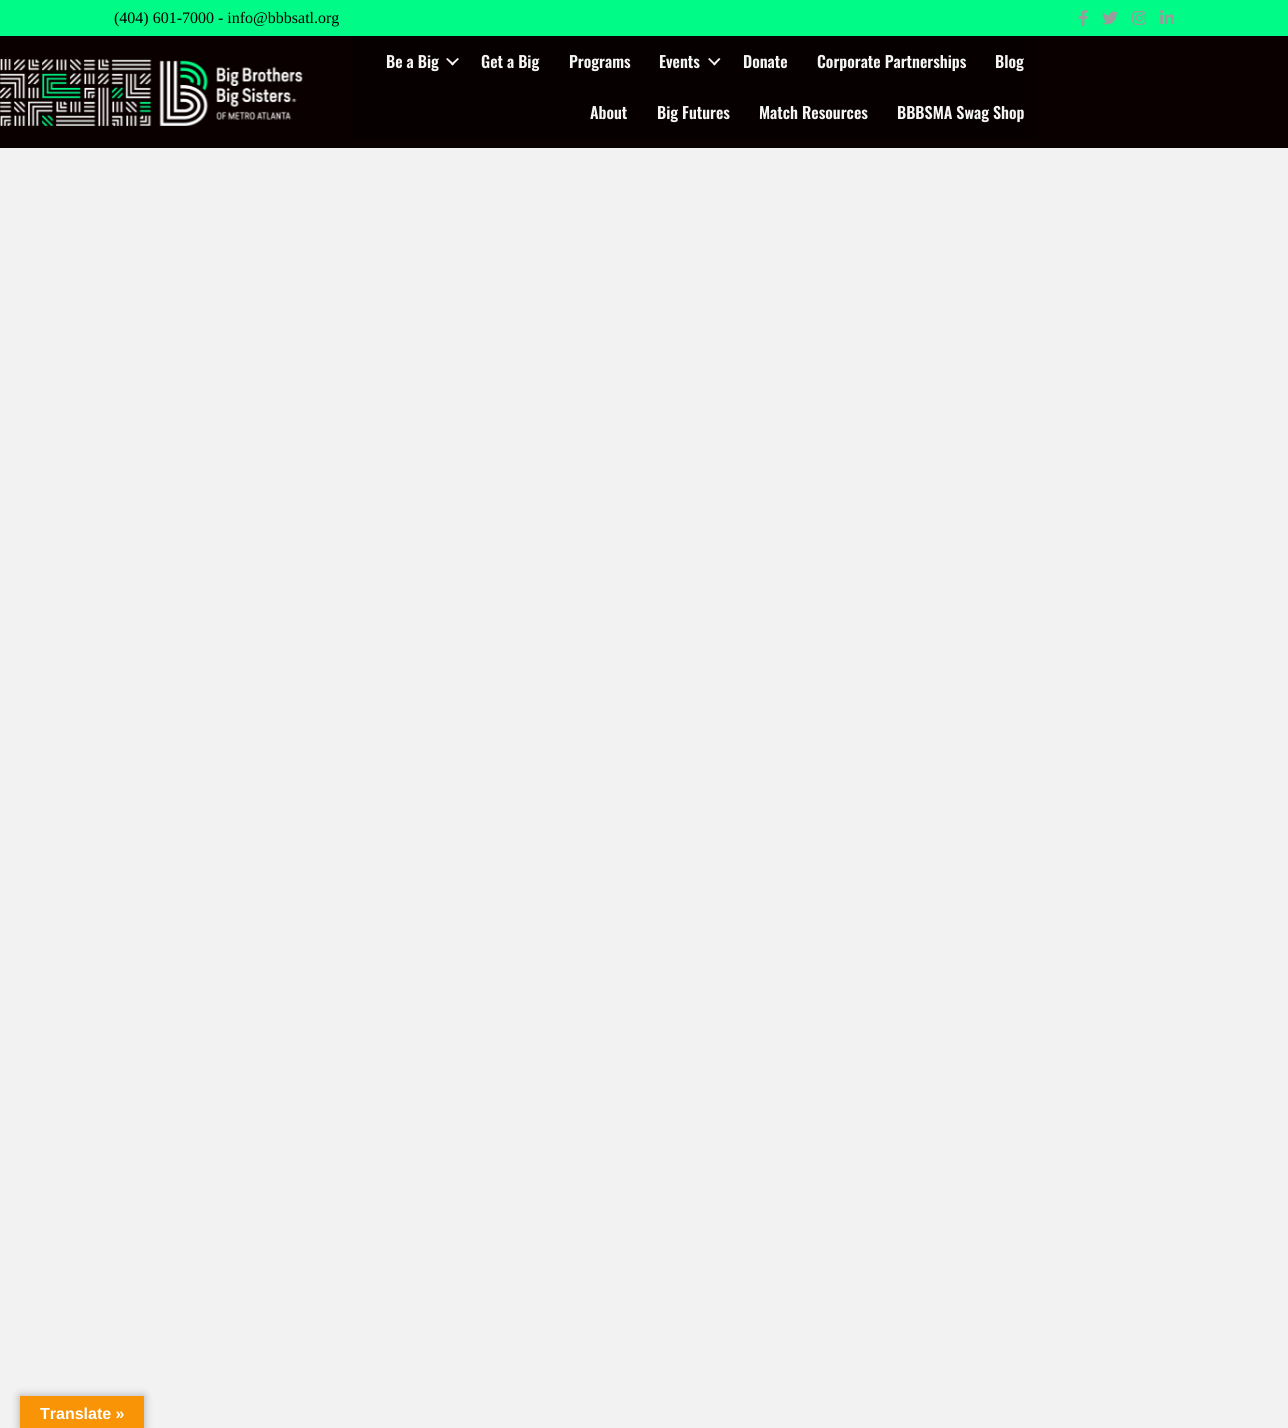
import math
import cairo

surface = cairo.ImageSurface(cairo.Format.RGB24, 1288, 1428)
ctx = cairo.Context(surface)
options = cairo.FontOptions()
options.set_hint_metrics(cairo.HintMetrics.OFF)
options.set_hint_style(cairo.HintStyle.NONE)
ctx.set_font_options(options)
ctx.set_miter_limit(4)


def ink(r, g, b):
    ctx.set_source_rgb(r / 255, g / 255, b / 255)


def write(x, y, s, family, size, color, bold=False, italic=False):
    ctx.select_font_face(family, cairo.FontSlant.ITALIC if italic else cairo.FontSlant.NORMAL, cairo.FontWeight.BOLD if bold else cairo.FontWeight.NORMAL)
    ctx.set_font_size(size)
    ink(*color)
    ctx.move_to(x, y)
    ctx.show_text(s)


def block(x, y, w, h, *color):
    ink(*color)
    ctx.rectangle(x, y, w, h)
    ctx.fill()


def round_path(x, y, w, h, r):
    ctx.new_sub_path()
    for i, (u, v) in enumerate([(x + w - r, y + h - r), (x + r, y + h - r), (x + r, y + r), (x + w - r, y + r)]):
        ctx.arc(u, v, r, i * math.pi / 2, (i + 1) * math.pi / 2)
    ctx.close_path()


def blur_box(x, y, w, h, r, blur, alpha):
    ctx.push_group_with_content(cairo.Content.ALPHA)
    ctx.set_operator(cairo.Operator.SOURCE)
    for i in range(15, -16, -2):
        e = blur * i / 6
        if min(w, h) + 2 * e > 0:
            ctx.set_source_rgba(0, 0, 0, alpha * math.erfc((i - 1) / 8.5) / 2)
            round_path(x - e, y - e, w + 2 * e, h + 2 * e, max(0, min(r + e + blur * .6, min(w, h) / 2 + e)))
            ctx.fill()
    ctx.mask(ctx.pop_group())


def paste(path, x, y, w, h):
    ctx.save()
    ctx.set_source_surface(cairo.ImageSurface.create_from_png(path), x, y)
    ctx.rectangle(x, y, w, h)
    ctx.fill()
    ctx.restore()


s1 = dict(family="Liberation Serif", size=16, color=(0, 0, 0))
s2 = dict(family="Oswald SemiBold", size=16, color=(245, 245, 245))
s3 = dict(family="Liberation Sans", size=16, color=(255, 255, 255), bold=True)

ink(242, 242, 242)
ctx.paint()
block(0, 0, 1288, 36, 0, 252, 135)
write(114, 23, "(404) 601-7000 - info@bbbsatl.org", **s1)
paste("pic1.png", 1078, 10, 10, 16)
paste("pic2.png", 1102, 11, 16, 14)
paste("pic3.png", 1132, 11, 15, 14)
paste("pic4.png", 1160, 10, 14, 14)
block(0, 36, 1288, 112, 10, 0, 0)
paste("pic5.png", 0, 59, 303, 67)
block(352, 36, 686, 102, 7, 0, 0)
write(386, 68, "Be a Big", **s2)
ctx.new_path()
ctx.move_to(457.5, 58)
ctx.line_to(459, 59)
ctx.line_to(452.5, 65.5)
ctx.line_to(451, 64)
ctx.close_path()
ctx.fill()
ctx.new_path()
ctx.move_to(447.5, 58)
ctx.line_to(454, 64)
ctx.line_to(452.5, 65.5)
ctx.line_to(446, 59)
ctx.close_path()
ctx.fill()
write(481, 68, "Get a Big", **s2)
write(569, 68, "Programs", **s2)
write(659, 68, "Events", **s2)
ctx.new_path()
ctx.move_to(719, 58)
ctx.line_to(720.5, 59)
ctx.line_to(714.5, 65.5)
ctx.line_to(713, 64)
ctx.close_path()
ctx.fill()
ctx.new_path()
ctx.move_to(709.5, 58)
ctx.line_to(715.5, 64)
ctx.line_to(714.5, 65.5)
ctx.line_to(708, 59)
ctx.close_path()
ctx.fill()
write(743, 68, "Donate", **s2)
write(817, 68, "Corporate Partnerships", **s2)
write(995, 68, "Blog", **s2)
write(590, 119, "About", **s2)
write(657, 119, "Big Futures", **s2)
write(759, 119, "Match Resources", **s2)
write(897, 119, "BBBSMA Swag Shop", **s2)
ink(0, 0, 0)
blur_box(20, 1396, 124, 32, 0, 4.5, 0.3)
block(20, 1396, 124, 32, 248, 148, 6)
write(40, 1419, "Translate »", **s3)
surface.write_to_png("screenshot.png")
